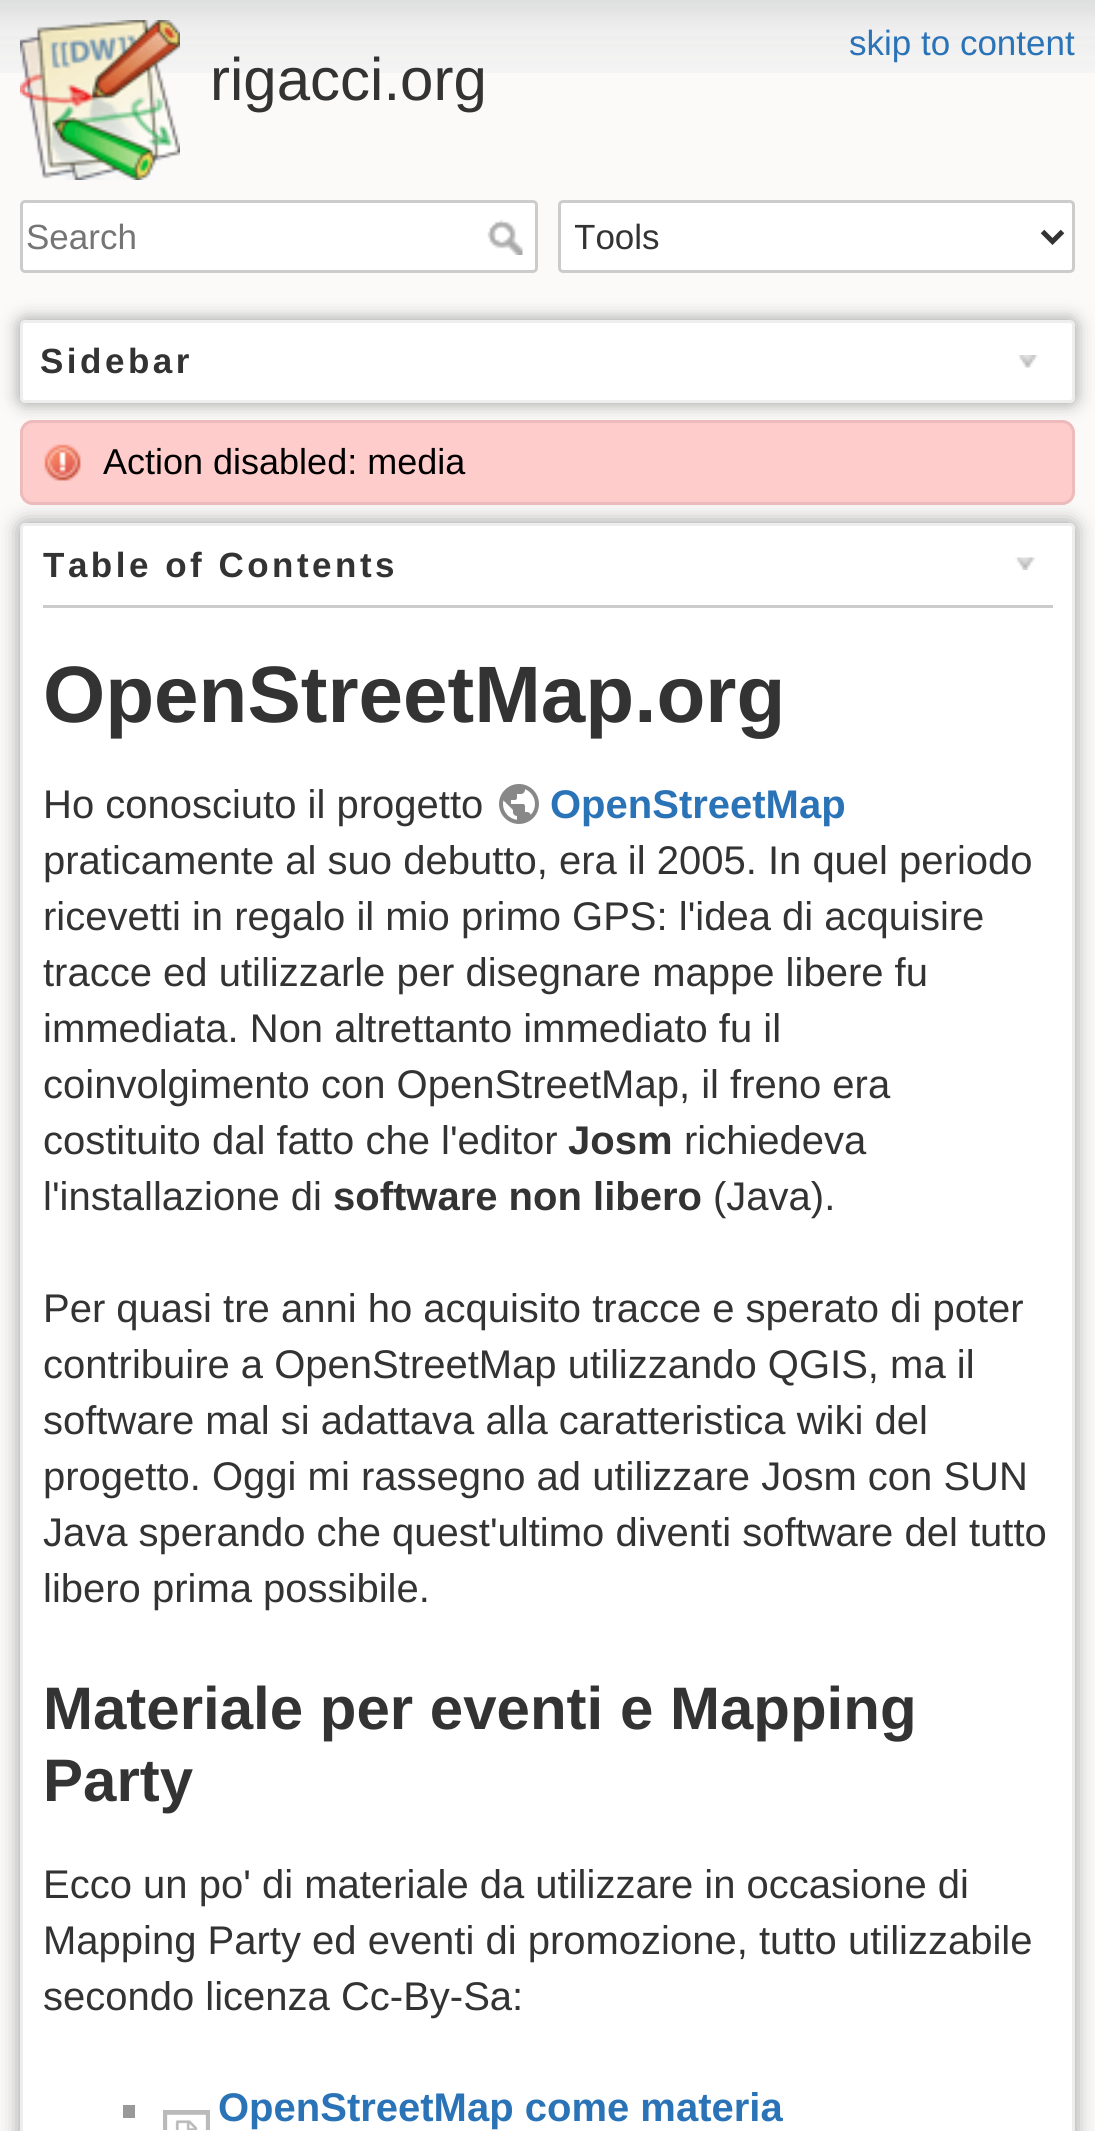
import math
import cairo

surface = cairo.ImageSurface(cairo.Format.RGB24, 1095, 2131)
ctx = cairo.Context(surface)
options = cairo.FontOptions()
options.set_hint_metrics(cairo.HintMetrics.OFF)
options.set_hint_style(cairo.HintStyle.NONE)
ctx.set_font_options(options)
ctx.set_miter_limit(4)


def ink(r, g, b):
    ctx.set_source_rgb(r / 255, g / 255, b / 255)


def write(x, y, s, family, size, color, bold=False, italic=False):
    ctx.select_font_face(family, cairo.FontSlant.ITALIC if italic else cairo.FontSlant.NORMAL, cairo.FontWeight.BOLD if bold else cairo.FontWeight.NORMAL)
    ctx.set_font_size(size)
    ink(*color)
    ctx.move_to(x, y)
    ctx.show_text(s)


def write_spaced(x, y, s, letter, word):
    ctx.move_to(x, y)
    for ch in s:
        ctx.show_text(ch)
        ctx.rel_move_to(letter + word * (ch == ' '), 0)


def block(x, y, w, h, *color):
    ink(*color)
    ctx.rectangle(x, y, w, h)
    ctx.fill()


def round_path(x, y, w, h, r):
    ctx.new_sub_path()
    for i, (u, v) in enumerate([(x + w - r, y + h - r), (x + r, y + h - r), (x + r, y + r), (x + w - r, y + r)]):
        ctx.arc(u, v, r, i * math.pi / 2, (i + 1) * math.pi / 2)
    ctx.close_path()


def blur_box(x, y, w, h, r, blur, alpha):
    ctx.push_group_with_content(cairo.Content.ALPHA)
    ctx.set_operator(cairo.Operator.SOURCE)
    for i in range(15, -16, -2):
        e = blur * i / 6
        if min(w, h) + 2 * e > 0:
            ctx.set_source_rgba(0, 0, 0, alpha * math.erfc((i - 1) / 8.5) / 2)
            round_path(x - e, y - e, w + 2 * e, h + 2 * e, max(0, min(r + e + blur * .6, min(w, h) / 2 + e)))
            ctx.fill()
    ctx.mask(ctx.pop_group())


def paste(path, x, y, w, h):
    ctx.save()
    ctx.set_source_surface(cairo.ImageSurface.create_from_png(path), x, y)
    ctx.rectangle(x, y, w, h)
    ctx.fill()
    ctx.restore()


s1 = dict(family="Liberation Sans", size=35, color=(43, 115, 183))
s2 = dict(family="Liberation Sans", size=60, color=(51, 51, 51))
s3 = dict(family="Liberation Sans", size=35, color=(117, 117, 117))
s4 = dict(family="Liberation Sans", size=35, color=(51, 51, 51))
s5 = dict(family="Liberation Sans", size=36, color=(0, 0, 0))
s6 = dict(family="Liberation Sans", size=80, color=(51, 51, 51), bold=True)
s7 = dict(family="Liberation Sans", size=40, color=(51, 51, 51))
s8 = dict(family="Liberation Sans", size=40, color=(43, 115, 183), bold=True)
s9 = dict(family="Liberation Sans", size=40, color=(51, 51, 51), bold=True)
s10 = dict(family="Liberation Sans", size=60, color=(51, 51, 51), bold=True)

ink(251, 250, 249)
ctx.paint()
paste("pic1.png", 0, 0, 1095, 73)
write(849, 55, "skip to content", **s1)
paste("pic2.png", 20, 20, 160, 160)
write(210, 100, "rigacci.org", **s2)
ink(255, 255, 255)
round_path(21.5, 201.5, 515, 70, 3.5)
ctx.fill_preserve()
ink(204, 204, 204)
ctx.set_line_width(3)
ctx.stroke()
write(26, 249, "Search", **s3)
paste("pic3.png", 487, 220, 36, 35)
ink(255, 255, 255)
round_path(559.5, 201.5, 514, 70, 3.5)
ctx.fill_preserve()
ink(204, 204, 204)
ctx.stroke()
ctx.new_path()
ctx.move_to(1042.5, 231.5)
ctx.line_to(1052.5, 241.5)
ctx.line_to(1062.5, 231.5)
ink(51, 51, 51)
ctx.set_line_width(5)
ctx.stroke()
ctx.save()
ctx.rectangle(575, 215, 455, 45)
ctx.clip()
write(574, 249, "Tools", **s4)
ctx.restore()
ink(255, 204, 204)
round_path(20, 420, 1055, 85, 13)
ctx.fill()
paste("pic5.png", 44, 444, 37, 37)
round_path(21.5, 421.5, 1052, 82, 11.5)
ink(238, 187, 187)
ctx.set_line_width(3)
ctx.stroke()
ink(153, 153, 153)
blur_box(20, 320, 1055, 83, 5, 9, 1)
ink(255, 255, 255)
round_path(21.5, 321.5, 1052, 80, 3.5)
ctx.fill_preserve()
ink(238, 238, 238)
ctx.stroke()
ctx.select_font_face("Liberation Sans", cairo.FontSlant.NORMAL, cairo.FontWeight.BOLD)
ink(51, 51, 51)
write_spaced(40, 373, "Sidebar", 3.5, 0)
paste("pic4.png", 1018, 355, 20, 13)
write(103, 474, "Action disabled: media", **s5)
ink(153, 153, 153)
blur_box(20, 523, 1055, 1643, 5, 10, 1)
ink(255, 255, 255)
round_path(21.5, 524.5, 1052, 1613, 3.5)
ctx.fill_preserve()
ink(238, 238, 238)
ctx.stroke()
block(43, 605, 1010, 3, 204, 204, 204)
ctx.select_font_face("Liberation Sans", cairo.FontSlant.NORMAL, cairo.FontWeight.BOLD)
ctx.set_font_size(35)
ink(51, 51, 51)
write_spaced(43, 577, "Table of Contents", 3.5, 0)
paste("pic6.png", 1015, 557, 20, 13)
write(43, 722, "OpenStreetMap.org", **s6)
write(43, 818, "Ho conosciuto il progetto", **s7)
paste("pic7.png", 499, 784, 40, 40)
write(550, 818, "OpenStreetMap", **s8)
write(43, 874, "praticamente al suo debutto, era il 2005. In quel periodo", **s7)
write(43, 930, "ricevetti in regalo il mio primo GPS: l'idea di acquisire", **s7)
write(43, 986, "tracce ed utilizzarle per disegnare mappe libere fu", **s7)
write(43, 1042, "immediata. Non altrettanto immediato fu il", **s7)
write(43, 1098, "coinvolgimento con OpenStreetMap, il freno era", **s7)
write(43, 1154, "costituito dal fatto che l'editor", **s7)
write(568, 1154, "Josm", **s9)
write(684, 1154, "richiedeva", **s7)
write(43, 1210, "l'installazione di", **s7)
write(333, 1210, "software non libero", **s9)
write(713, 1210, "(Java).", **s7)
write(43, 1322, "Per quasi tre anni ho acquisito tracce e sperato di poter", **s7)
write(43, 1378, "contribuire a OpenStreetMap utilizzando QGIS, ma il", **s7)
write(43, 1434, "software mal si adattava alla caratteristica wiki del", **s7)
write(43, 1490, "progetto. Oggi mi rassegno ad utilizzare Josm con SUN", **s7)
write(43, 1546, "Java sperando che quest'ultimo diventi software del tutto", **s7)
write(43, 1602, "libero prima possibile.", **s7)
write(43, 1729, "Materiale per eventi e Mapping", **s10)
write(43, 1801, "Party", **s10)
write(43, 1898, "Ecco un po' di materiale da utilizzare in occasione di", **s7)
write(43, 1954, "Mapping Party ed eventi di promozione, tutto utilizzabile", **s7)
write(43, 2010, "secondo licenza Cc-By-Sa:", **s7)
block(123, 2105, 12, 13, 153, 153, 153)
paste("pic8.png", 163, 2110, 47, 20)
write(218, 2121, "OpenStreetMap come materia", **s8)
surface.write_to_png("screenshot.png")
